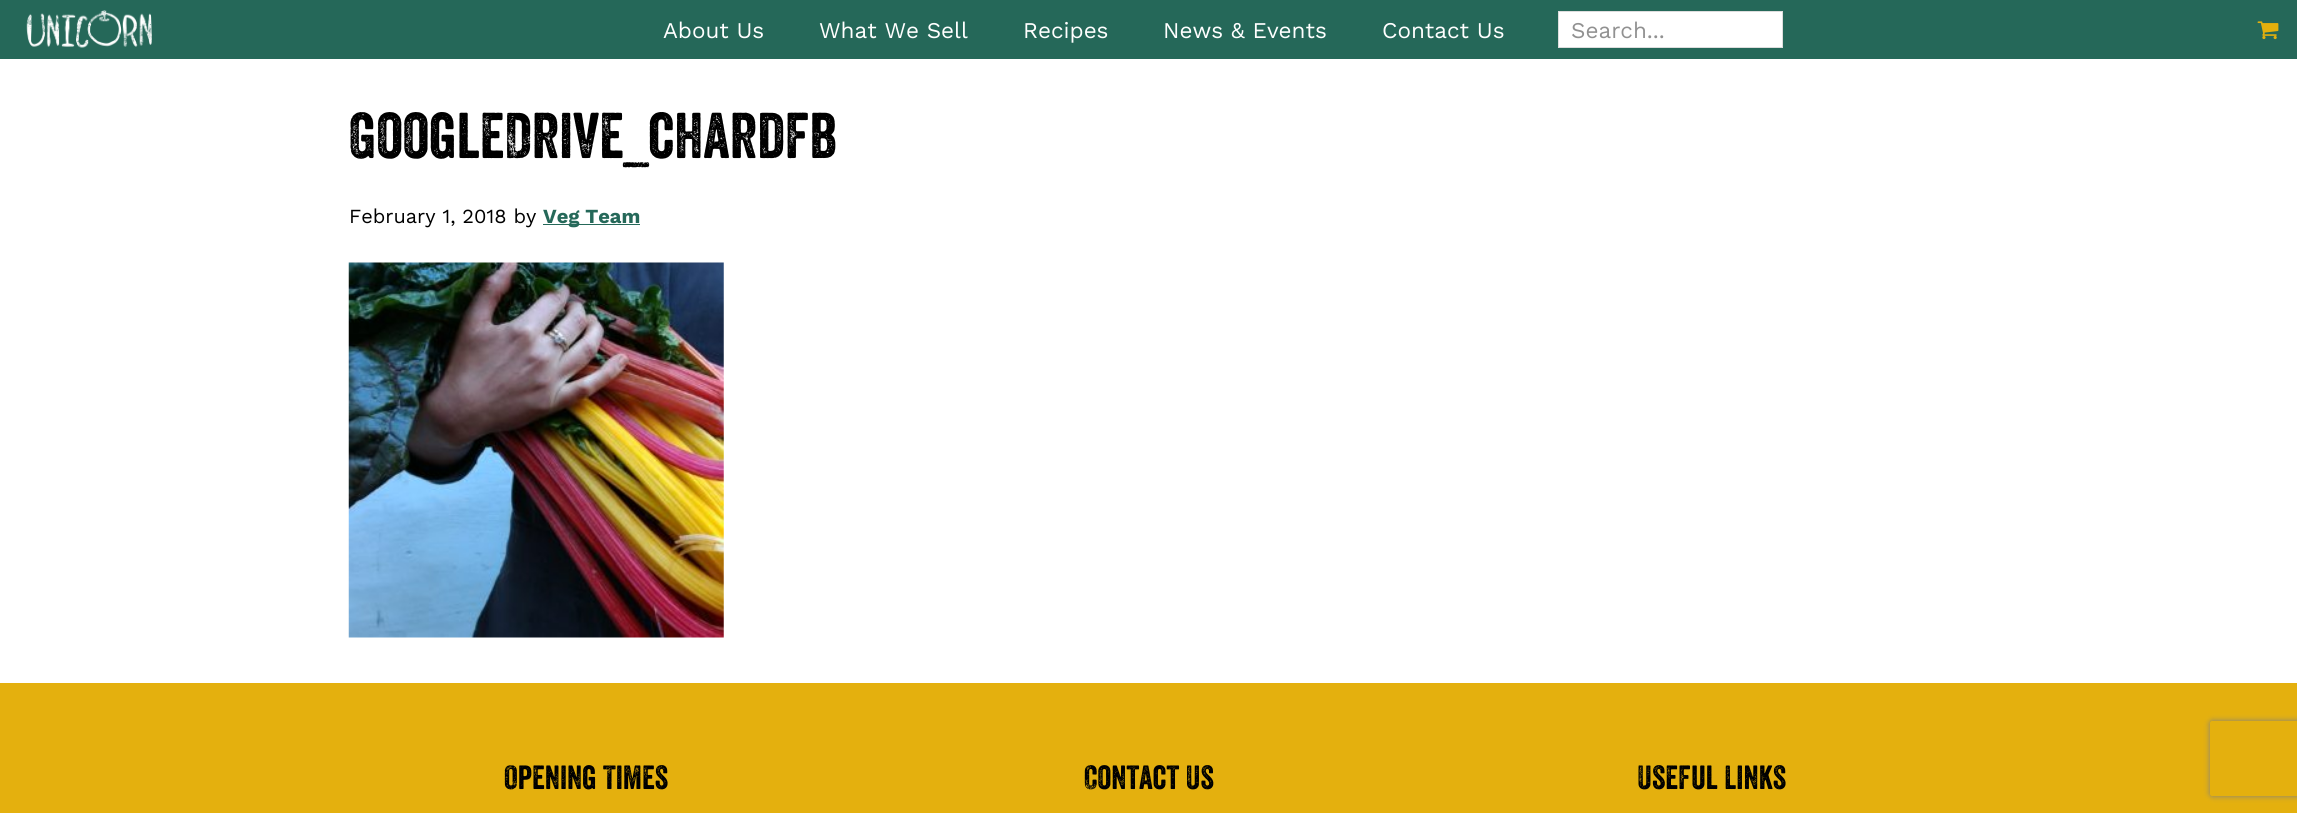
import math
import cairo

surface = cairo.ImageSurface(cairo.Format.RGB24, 2297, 813)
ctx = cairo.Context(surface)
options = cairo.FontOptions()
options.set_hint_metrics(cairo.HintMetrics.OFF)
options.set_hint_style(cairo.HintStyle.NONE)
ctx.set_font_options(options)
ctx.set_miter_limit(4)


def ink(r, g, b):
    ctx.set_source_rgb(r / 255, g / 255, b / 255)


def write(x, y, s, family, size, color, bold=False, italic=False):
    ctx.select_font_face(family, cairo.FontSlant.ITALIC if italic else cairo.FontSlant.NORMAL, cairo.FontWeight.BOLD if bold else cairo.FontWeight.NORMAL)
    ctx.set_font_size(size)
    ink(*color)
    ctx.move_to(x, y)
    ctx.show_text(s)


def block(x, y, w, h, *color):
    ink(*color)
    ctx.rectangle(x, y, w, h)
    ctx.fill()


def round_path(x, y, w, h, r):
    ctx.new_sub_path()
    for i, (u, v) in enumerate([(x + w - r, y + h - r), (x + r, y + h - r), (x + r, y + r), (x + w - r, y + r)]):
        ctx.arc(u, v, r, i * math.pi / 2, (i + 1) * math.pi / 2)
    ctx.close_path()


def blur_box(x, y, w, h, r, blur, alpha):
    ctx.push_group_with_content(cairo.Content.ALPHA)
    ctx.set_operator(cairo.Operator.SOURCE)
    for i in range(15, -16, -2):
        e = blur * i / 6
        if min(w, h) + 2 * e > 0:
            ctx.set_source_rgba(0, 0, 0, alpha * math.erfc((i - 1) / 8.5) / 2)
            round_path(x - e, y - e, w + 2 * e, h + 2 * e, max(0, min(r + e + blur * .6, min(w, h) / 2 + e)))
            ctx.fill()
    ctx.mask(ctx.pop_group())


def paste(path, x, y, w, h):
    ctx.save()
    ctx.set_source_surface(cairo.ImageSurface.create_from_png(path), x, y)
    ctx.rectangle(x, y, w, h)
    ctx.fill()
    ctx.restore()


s1 = dict(family="Work Sans", size=22.5, color=(255, 255, 255))
s2 = dict(family="Work Sans", size=22.5, color=(145, 145, 145))
s3 = dict(family="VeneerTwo", size=62.5, color=(0, 0, 0))
s4 = dict(family="Work Sans", size=20, color=(0, 0, 0))
s5 = dict(family="Work Sans", size=20, color=(37, 104, 89), bold=True)
s6 = dict(family="VeneerTwo", size=32.5, color=(0, 0, 0))

ink(255, 255, 255)
ctx.paint()
block(0, 0, 2297, 59, 37, 104, 89)
paste("pic1.png", 26, 10, 126, 38)
write(663, 38, "About Us", **s1)
write(819, 38, "What We Sell", **s1)
write(1023, 38, "Recipes", **s1)
write(1163, 38, "News & Events", **s1)
write(1382, 38, "Contact Us", **s1)
ctx.rectangle(1558.5, 11.5, 224, 36)
ctx.fill_preserve()
ink(221, 221, 221)
ctx.set_line_width(1)
ctx.stroke()
write(1571, 38, "Search...", **s2)
paste("pic2.png", 2257, 21, 22, 19)
write(349, 158, "GoogleDrive_chardfb", **s3)
write(349, 223, "February 1, 2018 by", **s4)
block(543, 224, 97, 1, 37, 104, 89)
write(543, 223, "Veg Team", **s5)
paste("pic3.png", 348, 262, 376, 376)
block(0, 683, 2297, 130, 228, 176, 14)
write(504, 789, "Opening Times", **s6)
write(1084, 789, "Contact Us", **s6)
write(1637, 789, "Useful Links", **s6)
ctx.save()
ctx.set_fill_rule(cairo.FillRule.EVEN_ODD)
ctx.new_path()
ctx.move_to(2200, 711)
ctx.line_to(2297, 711)
ctx.line_to(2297, 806)
ctx.line_to(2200, 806)
ctx.close_path()
ctx.move_to(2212.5, 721)
ctx.line_to(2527.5, 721)
ctx.curve_to(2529, 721, 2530, 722, 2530, 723.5)
ctx.line_to(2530, 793.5)
ctx.curve_to(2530, 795, 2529, 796, 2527.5, 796)
ctx.line_to(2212.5, 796)
ctx.curve_to(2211, 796, 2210, 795, 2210, 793.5)
ctx.line_to(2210, 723.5)
ctx.curve_to(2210, 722, 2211, 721, 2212.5, 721)
ctx.close_path()
ctx.clip()
ink(128, 128, 128)
blur_box(2210, 721, 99, 75, 2.5, 3, 1)
ctx.restore()
surface.write_to_png("screenshot.png")
